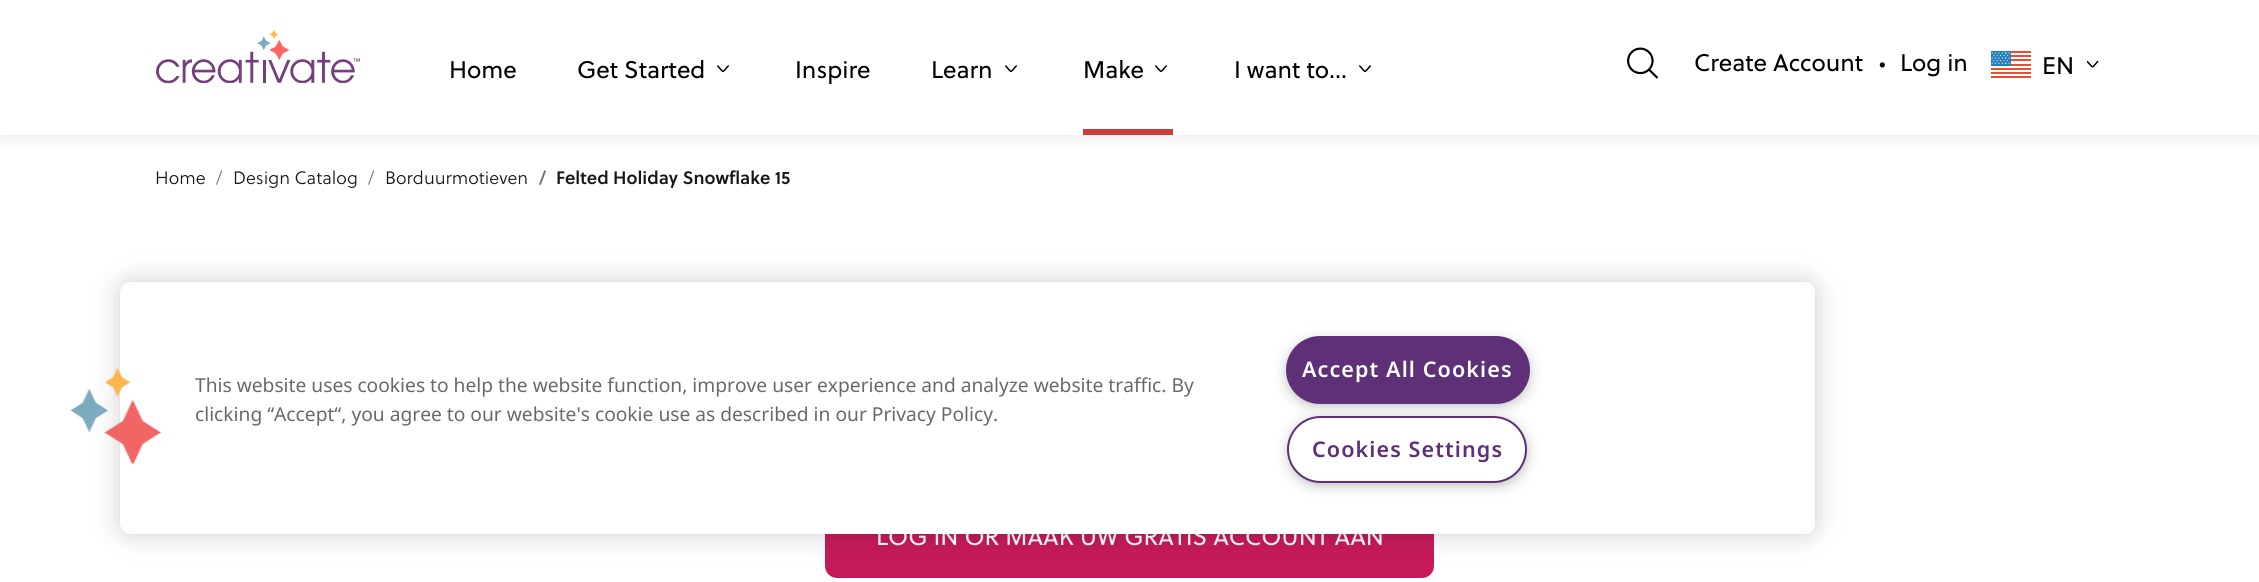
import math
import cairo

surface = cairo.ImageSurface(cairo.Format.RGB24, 2259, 582)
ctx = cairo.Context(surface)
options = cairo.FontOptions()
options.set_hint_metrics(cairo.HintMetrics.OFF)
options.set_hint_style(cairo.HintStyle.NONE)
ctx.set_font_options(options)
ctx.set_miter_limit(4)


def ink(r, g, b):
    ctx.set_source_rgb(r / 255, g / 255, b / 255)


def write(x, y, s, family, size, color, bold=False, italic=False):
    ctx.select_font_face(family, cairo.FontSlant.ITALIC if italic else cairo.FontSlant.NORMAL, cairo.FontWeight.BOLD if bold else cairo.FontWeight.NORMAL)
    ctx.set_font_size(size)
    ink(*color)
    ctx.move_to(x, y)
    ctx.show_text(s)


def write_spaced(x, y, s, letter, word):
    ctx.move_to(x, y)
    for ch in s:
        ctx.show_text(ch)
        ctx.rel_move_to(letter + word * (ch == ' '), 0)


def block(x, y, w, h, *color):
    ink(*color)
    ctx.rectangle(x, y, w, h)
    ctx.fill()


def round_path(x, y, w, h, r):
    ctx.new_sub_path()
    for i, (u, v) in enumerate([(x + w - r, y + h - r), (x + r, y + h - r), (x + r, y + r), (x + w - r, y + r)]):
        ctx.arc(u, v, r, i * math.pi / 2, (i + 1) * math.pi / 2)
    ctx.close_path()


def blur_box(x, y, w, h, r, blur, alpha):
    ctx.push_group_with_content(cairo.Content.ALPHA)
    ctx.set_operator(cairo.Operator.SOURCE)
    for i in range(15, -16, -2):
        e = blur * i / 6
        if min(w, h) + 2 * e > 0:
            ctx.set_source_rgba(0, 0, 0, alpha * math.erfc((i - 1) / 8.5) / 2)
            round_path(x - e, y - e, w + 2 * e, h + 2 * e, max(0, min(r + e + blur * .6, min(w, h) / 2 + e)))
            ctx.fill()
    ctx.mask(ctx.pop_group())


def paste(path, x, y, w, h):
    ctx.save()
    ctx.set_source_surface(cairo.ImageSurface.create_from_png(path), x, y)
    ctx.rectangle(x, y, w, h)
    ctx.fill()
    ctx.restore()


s1 = dict(family="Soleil", size=24, color=(0, 0, 0))
s2 = dict(family="Soleil", size=21, color=(0, 0, 0))
s3 = dict(family="Soleil Light", size=18, color=(22, 22, 21))
s4 = dict(family="Soleil Light", size=18, color=(108, 117, 125))
s5 = dict(family="Soleil Medium", size=18, color=(108, 117, 125))
s6 = dict(family="Soleil Medium", size=18, color=(22, 22, 21))
s7 = dict(family="Soleil", size=24, color=(255, 255, 255))
s8 = dict(family="Noto Sans", size=19.2, color=(105, 105, 105))

ink(255, 255, 255)
ctx.paint()
ctx.save()
ctx.rectangle(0, 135, 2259, 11)
ctx.clip()
ink(0, 0, 0)
blur_box(0, 0, 2259, 135, 0, 11, 0.12)
ctx.restore()
paste("pic1.png", 156, 30, 204, 53)
write(449, 78, "Home", **s1)
write(577, 78, "Get Started", **s1)
paste("pic2.png", 717, 65, 12, 7)
write(795, 78, "Inspire", **s1)
write(931, 78, "Learn", **s1)
paste("pic2.png", 1005, 65, 12, 7)
block(1083, 129, 90, 6, 206, 59, 59)
write(1083, 78, "Make", **s1)
paste("pic2.png", 1155, 65, 12, 7)
write(1234, 78, "I want to...", **s1)
paste("pic2.png", 1359, 65, 12, 7)
paste("pic3.png", 1627, 47, 31, 32)
write(1694, 71, "Create Account", **s1)
write(1879, 71, "•", **s2)
write(1900, 71, "Log in", **s1)
paste("pic4.png", 1991, 51, 40, 27)
write(2042, 74, "EN", **s1)
paste("pic5.png", 2087, 60, 12, 8)
write(155, 184, "Home", **s3)
write(216, 184, "/", **s4)
write(233, 184, "Design Catalog", **s3)
write(368, 184, "/", **s4)
write(385, 184, "Borduurmotieven", **s3)
write(539, 184, "/", **s5)
write(556, 184, "Felted Holiday Snowflake 15", **s6)
ink(198, 26, 90)
round_path(825, 503, 609, 75, 12)
ctx.fill()
write(876, 545, "LOG IN OR MAAK UW GRATIS ACCOUNT AAN", **s7)
ink(0, 0, 0)
blur_box(120, 282, 1695, 252, 11, 13.5, 0.2)
ink(255, 255, 255)
round_path(120, 282, 1695, 252, 11)
ctx.fill()
paste("pic6.png", 70, 368, 92, 96)
write(195, 392, "This website uses cookies to help the website function, improve user experience and analyze website traffic. By", **s8)
write(195, 421, "clicking “Accept“, you agree to our website's cookie use as described in our Privacy Policy.", **s8)
ink(153, 153, 153)
blur_box(1290, 344, 236, 58, 29, 7.5, 1)
ink(93, 48, 120)
round_path(1287, 337, 242, 66, 33)
ctx.fill_preserve()
ctx.stroke()
ctx.select_font_face("Noto Sans SemiBold")
ctx.set_font_size(21.5)
ink(255, 255, 255)
write_spaced(1302, 377, "Accept All Cookies", 1.1, 0)
ink(153, 153, 153)
blur_box(1292, 423, 231, 59, 29.5, 7.5, 1)
ink(255, 255, 255)
round_path(1288, 417, 238, 65, 32.5)
ctx.fill_preserve()
ink(93, 48, 120)
ctx.stroke()
write_spaced(1312, 457, "Cookies Settings", 1.1, 0)
surface.write_to_png("screenshot.png")
